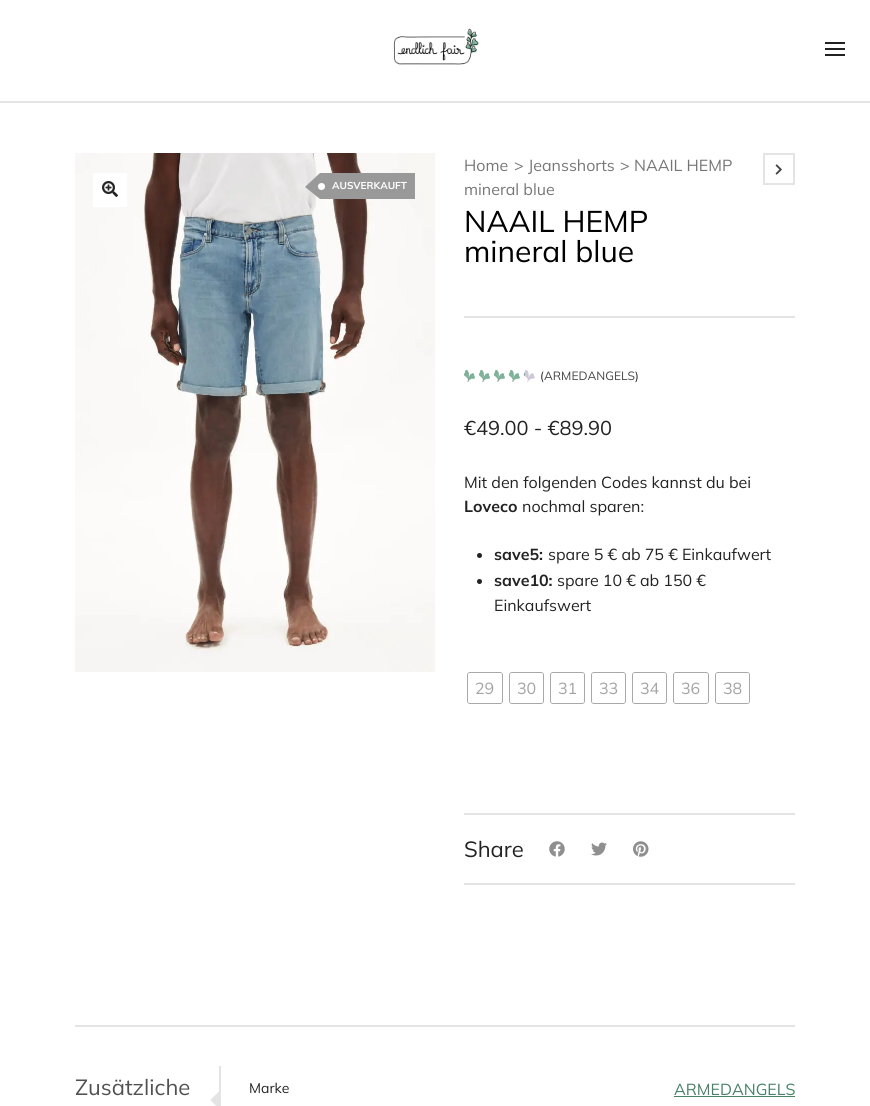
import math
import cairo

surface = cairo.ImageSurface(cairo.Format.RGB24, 870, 1106)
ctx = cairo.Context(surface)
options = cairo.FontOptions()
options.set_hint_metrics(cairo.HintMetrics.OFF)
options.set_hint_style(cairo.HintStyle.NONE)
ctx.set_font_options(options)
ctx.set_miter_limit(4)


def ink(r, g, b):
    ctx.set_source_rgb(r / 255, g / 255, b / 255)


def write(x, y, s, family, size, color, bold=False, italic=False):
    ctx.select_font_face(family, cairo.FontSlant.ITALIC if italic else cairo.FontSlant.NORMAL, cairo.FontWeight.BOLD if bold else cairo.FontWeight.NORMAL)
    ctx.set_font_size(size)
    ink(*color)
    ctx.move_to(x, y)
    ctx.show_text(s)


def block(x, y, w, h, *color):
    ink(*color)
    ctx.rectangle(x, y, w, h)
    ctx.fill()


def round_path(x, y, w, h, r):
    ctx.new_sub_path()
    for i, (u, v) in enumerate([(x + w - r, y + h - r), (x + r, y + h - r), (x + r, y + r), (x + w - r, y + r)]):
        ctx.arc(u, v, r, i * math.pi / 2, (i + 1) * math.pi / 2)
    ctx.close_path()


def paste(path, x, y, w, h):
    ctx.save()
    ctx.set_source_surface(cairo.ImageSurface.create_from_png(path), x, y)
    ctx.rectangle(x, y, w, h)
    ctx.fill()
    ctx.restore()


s1 = dict(family="Mulish", size=10, color=(255, 255, 255), bold=True)
s2 = dict(family="Mulish", size=16, color=(118, 118, 118))
s3 = dict(family="Mulish", size=30, color=(0, 0, 0))
s4 = dict(family="Mulish", size=12, color=(34, 34, 34))
s5 = dict(family="Mulish", size=12, color=(68, 68, 68))
s6 = dict(family="Mulish", size=20, color=(34, 34, 34))
s7 = dict(family="Mulish", size=16, color=(34, 34, 34))
s8 = dict(family="Mulish", size=16, color=(34, 34, 34), bold=True)
s9 = dict(family="Mulish", size=16, color=(163, 163, 163))
s10 = dict(family="Mulish", size=22, color=(34, 34, 34))
s11 = dict(family="Mulish", size=22, color=(81, 81, 81))
s12 = dict(family="Mulish", size=14, color=(34, 34, 34))
s13 = dict(family="Mulish", size=16, color=(72, 130, 103))

ink(255, 255, 255)
ctx.paint()
block(0, 101, 870, 2, 228, 228, 228)
paste("pic1.png", 393, 28, 86, 37)
block(825, 48, 20, 2, 34, 34, 34)
block(825, 42, 20, 2, 34, 34, 34)
block(825, 54, 20, 2, 34, 34, 34)
paste("pic2.png", 75, 153, 360, 519)
block(93, 173, 34, 34, 255, 255, 255)
paste("pic3.png", 102, 181, 16, 16)
block(320, 173, 95, 26, 153, 153, 153)
ctx.new_path()
ctx.move_to(320, 173)
ctx.line_to(320, 199)
ctx.line_to(305, 187)
ctx.close_path()
ctx.fill()
ink(255, 255, 255)
ctx.arc(321.5, 186.5, 3.5, 0, 2 * math.pi)
ctx.fill()
write(332, 189, "AUSVERKAUFT", **s1)
block(464, 316, 331, 2, 228, 228, 228)
write(464, 171, "Home", **s2)
write(514, 171, ">", **s2)
write(528, 171, "Jeansshorts", **s2)
write(620, 171, ">", **s2)
write(634, 171, "NAAIL HEMP", **s2)
write(464, 195, "mineral blue", **s2)
ctx.rectangle(764, 154, 30, 30)
ink(228, 228, 228)
ctx.stroke()
paste("pic4.png", 775, 164, 7, 11)
write(464, 232, "NAAIL HEMP", **s3)
write(464, 262, "mineral blue", **s3)
paste("pic5.png", 464, 370, 71, 12)
paste("pic6.png", 464, 370, 61, 12)
write(540, 380, "(", **s4)
write(544, 380, "ARMEDANGELS", **s5)
write(635, 380, ")", **s4)
write(464, 435, "€49.00 - €89.90", **s6)
write(464, 488, "Mit den folgenden Codes kannst du bei", **s7)
write(464, 512, "Loveco", **s8)
write(522, 512, "nochmal sparen:", **s7)
ctx.new_path()
ctx.arc(479.5, 555.5, 2.5, 0, 2 * math.pi)
ctx.fill()
write(494, 560, "save5:", **s8)
write(548, 560, "spare 5 € ab 75 € Einkaufwert", **s7)
ctx.new_path()
ctx.arc(479.5, 581.5, 2.5, 0, 2 * math.pi)
ctx.fill()
write(494, 586, "save10:", **s8)
write(557, 586, "spare 10 € ab 150 €", **s7)
write(494, 611, "Einkaufswert", **s7)
round_path(467.5, 672.5, 35, 31, 2.5)
ink(168, 168, 168)
ctx.set_line_width(1)
ctx.stroke()
ink(255, 255, 255)
round_path(468, 673, 34, 30, 2)
ctx.fill()
write(475, 694, "29", **s9)
round_path(509.5, 672.5, 34, 31, 2.5)
ink(168, 168, 168)
ctx.stroke()
ink(255, 255, 255)
round_path(510, 673, 33, 30, 2)
ctx.fill()
write(517, 694, "30", **s9)
round_path(550.5, 672.5, 34, 31, 2.5)
ink(168, 168, 168)
ctx.stroke()
ink(255, 255, 255)
round_path(551, 673, 33, 30, 2)
ctx.fill()
write(558, 694, "31", **s9)
round_path(591.5, 672.5, 34, 31, 2.5)
ink(168, 168, 168)
ctx.stroke()
ink(255, 255, 255)
round_path(592, 673, 33, 30, 2)
ctx.fill()
write(599, 694, "33", **s9)
round_path(632.5, 672.5, 34, 31, 2.5)
ink(168, 168, 168)
ctx.stroke()
ink(255, 255, 255)
round_path(633, 673, 33, 30, 2)
ctx.fill()
write(640, 694, "34", **s9)
round_path(673.5, 672.5, 35, 31, 2.5)
ink(168, 168, 168)
ctx.stroke()
ink(255, 255, 255)
round_path(674, 673, 34, 30, 2)
ctx.fill()
write(681, 694, "36", **s9)
round_path(715.5, 672.5, 34, 31, 2.5)
ink(168, 168, 168)
ctx.stroke()
ink(255, 255, 255)
round_path(716, 673, 33, 30, 2)
ctx.fill()
write(723, 694, "38", **s9)
block(464, 813, 331, 2, 228, 228, 228)
block(464, 883, 331, 2, 228, 228, 228)
write(464, 857, "Share", **s10)
paste("pic7.png", 549, 841, 16, 16)
paste("pic8.png", 591, 842, 16, 14)
paste("pic9.png", 633, 841, 16, 16)
block(75, 1025, 720, 2, 228, 228, 228)
write(75, 1095, "Zusätzliche", **s11)
ctx.save()
ctx.rectangle(75, 1067, 144, 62)
ctx.clip()
ink(228, 228, 228)
ctx.new_path()
ctx.move_to(210.5, 1100)
ctx.line_to(219, 1091.5)
ctx.line_to(227.5, 1100)
ctx.line_to(219, 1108.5)
ctx.close_path()
ctx.fill()
ctx.new_path()
ctx.move_to(213, 1100)
ctx.line_to(220.5, 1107)
ctx.line_to(219, 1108.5)
ctx.line_to(210.5, 1100)
ctx.line_to(219, 1091.5)
ctx.line_to(220.5, 1092.5)
ctx.close_path()
ctx.fill()
ctx.restore()
block(219, 1066, 2, 40, 228, 228, 228)
write(249, 1093, "Marke", **s12)
write(674, 1095, "ARMEDANGELS", **s13)
block(674, 1096, 121, 1, 72, 130, 103)
surface.write_to_png("screenshot.png")
